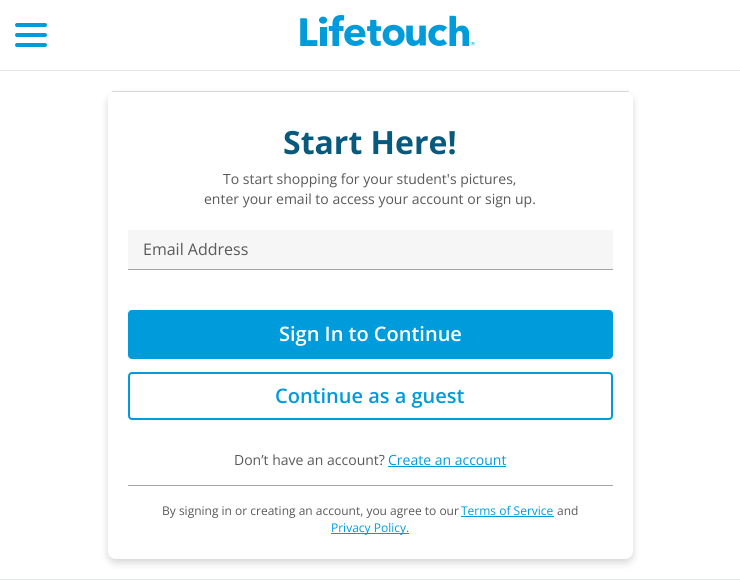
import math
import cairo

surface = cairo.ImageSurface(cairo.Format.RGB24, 740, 580)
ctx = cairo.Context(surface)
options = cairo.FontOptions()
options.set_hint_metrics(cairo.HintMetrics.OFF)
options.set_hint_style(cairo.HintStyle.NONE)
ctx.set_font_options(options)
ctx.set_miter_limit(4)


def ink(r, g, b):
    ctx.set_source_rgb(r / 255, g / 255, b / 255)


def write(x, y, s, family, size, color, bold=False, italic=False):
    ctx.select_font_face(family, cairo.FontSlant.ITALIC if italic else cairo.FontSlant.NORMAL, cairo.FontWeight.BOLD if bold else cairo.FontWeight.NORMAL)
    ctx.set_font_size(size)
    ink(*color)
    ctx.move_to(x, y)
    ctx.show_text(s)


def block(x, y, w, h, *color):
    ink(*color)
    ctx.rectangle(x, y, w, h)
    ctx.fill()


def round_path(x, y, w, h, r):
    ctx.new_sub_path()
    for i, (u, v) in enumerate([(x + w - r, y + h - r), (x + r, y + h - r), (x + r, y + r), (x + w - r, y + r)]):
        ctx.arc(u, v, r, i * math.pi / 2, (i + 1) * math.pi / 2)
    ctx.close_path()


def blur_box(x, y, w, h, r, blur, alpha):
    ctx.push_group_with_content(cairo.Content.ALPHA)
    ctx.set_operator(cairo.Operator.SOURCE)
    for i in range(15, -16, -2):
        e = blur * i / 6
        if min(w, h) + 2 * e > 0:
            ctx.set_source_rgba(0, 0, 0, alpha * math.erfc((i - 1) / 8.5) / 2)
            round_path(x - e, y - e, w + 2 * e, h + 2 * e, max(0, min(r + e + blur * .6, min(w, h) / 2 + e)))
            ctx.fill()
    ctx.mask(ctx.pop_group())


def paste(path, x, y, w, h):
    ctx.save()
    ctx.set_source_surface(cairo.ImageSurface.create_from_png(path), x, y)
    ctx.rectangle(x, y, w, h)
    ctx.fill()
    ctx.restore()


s1 = dict(family="Open Sans", size=32, color=(7, 89, 125), bold=True)
s2 = dict(family="Open Sans", size=14, color=(89, 89, 91))
s3 = dict(family="Open Sans", size=16, color=(89, 89, 91))
s4 = dict(family="Open Sans SemiBold", size=20, color=(255, 255, 255))
s5 = dict(family="Open Sans SemiBold", size=20, color=(0, 155, 219))
s6 = dict(family="Open Sans", size=14, color=(0, 155, 219))
s7 = dict(family="Open Sans", size=12, color=(89, 89, 91))
s8 = dict(family="Open Sans", size=12, color=(0, 155, 219))

ink(255, 255, 255)
ctx.paint()
block(0, 70, 740, 1, 227, 227, 227)
ink(0, 155, 219)
round_path(15, 23, 32, 4, 2)
ctx.fill()
round_path(15, 33, 32, 4, 2)
ctx.fill()
round_path(15, 43, 32, 4, 2)
ctx.fill()
paste("pic1.png", 300, 15, 175, 31)
ink(0, 0, 0)
blur_box(108, 95, 525, 468, 8, 4, 0.16)
ink(255, 255, 255)
round_path(108, 91, 525, 468, 8)
ctx.fill()
block(112, 91, 517, 1, 216, 216, 216)
write(283, 154, "Start Here!", **s1)
write(223, 184, "To start shopping for your student's pictures,", **s2)
write(204, 204, "enter your email to access your account or sign up.", **s2)
block(128, 230, 485, 39, 246, 246, 246)
block(128, 269, 485, 1, 163, 165, 168)
write(143, 255, "Email Address", **s3)
ink(0, 155, 219)
round_path(128, 310, 485, 49, 4)
ctx.fill()
write(279, 341, "Sign In to Continue", **s4)
round_path(129, 373, 483, 46, 3)
ink(0, 155, 219)
ctx.stroke()
write(275, 403, "Continue as a guest", **s5)
block(128, 485, 485, 1, 163, 165, 168)
write(234, 465, "Don’t have an account?", **s2)
write(388, 465, "Create an account", **s6)
block(388, 466, 118, 1, 0, 155, 219)
write(162, 515, "By signing in or creating an account, you agree to our", **s7)
block(461, 516, 93, 1, 0, 155, 219)
write(461, 515, "Terms of Service", **s8)
write(557, 515, "and", **s7)
block(331, 533, 78, 1, 0, 155, 219)
write(331, 532, "Privacy Policy.", **s8)
block(0, 579, 740, 1, 230, 231, 232)
surface.write_to_png("screenshot.png")
